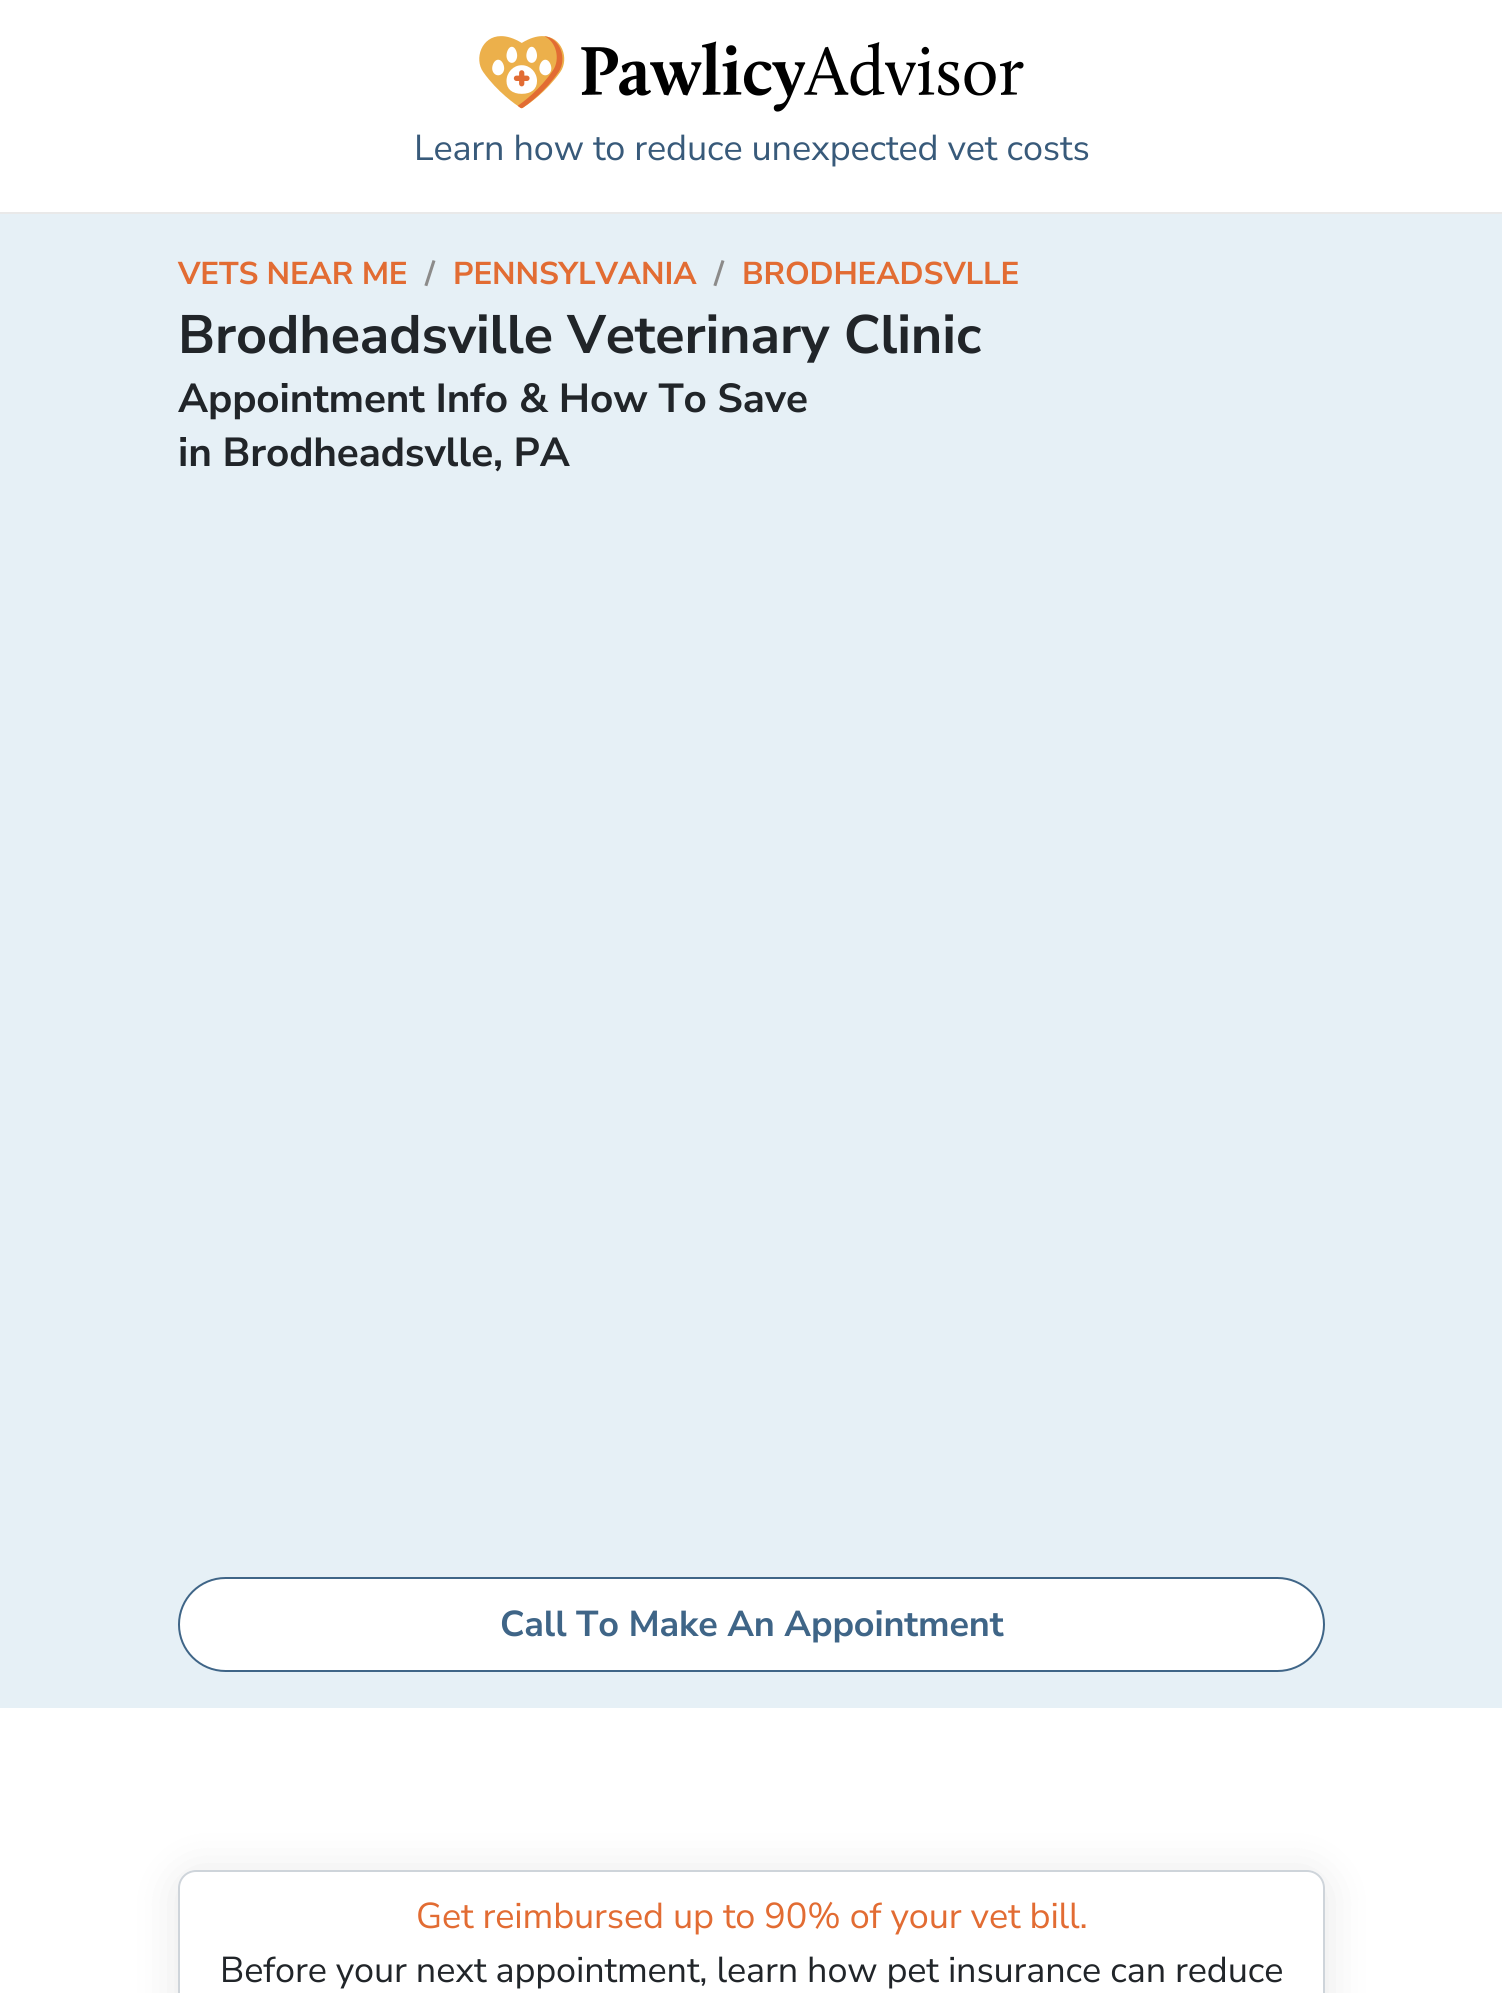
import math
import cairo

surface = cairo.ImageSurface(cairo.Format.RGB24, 1502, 1993)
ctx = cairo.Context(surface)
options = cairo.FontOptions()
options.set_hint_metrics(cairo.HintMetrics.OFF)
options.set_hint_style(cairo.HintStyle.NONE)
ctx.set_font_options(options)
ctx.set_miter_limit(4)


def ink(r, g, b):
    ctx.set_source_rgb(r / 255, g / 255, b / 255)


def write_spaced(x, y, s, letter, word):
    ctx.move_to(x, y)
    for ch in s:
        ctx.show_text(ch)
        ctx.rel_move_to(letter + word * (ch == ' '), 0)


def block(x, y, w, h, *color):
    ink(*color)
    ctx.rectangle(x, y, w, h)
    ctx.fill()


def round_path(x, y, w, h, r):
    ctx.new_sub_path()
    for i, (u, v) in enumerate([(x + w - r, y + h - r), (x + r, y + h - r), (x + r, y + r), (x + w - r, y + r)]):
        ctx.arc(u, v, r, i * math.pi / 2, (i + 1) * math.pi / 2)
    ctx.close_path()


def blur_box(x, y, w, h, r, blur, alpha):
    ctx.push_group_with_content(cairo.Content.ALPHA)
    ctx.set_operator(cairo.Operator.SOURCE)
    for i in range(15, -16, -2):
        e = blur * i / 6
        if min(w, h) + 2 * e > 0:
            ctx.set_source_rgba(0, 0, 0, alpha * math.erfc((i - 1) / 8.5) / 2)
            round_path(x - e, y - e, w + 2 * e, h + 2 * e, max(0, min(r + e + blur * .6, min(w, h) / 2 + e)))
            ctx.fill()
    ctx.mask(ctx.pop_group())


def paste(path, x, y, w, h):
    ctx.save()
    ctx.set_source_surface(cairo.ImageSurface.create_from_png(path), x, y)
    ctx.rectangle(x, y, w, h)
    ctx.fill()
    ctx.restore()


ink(255, 255, 255)
ctx.paint()
block(0, 212, 1502, 2, 233, 233, 233)
paste("pic1.png", 479, 36, 545, 76)
ctx.select_font_face("Nunito Sans")
ctx.set_font_size(36)
ink(56, 90, 122)
write_spaced(414, 160, "Learn how to reduce unexpected vet costs", -0.15, 0)
block(0, 214, 1502, 1494, 230, 240, 246)
ctx.select_font_face("Nunito Sans", cairo.FontSlant.NORMAL, cairo.FontWeight.BOLD)
ctx.set_font_size(31.5)
ink(226, 108, 51)
write_spaced(178, 284, "VETS NEAR ME", -0.15, 0)
ink(140, 139, 138)
write_spaced(425, 284, "/", -0.15, 0)
ink(226, 108, 51)
write_spaced(453, 284, "PENNSYLVANIA", -0.15, 0)
ink(140, 139, 138)
write_spaced(714, 284, "/", -0.15, 0)
ink(226, 108, 51)
write_spaced(742, 284, "BRODHEADSVLLE", -0.15, 0)
ctx.set_font_size(54)
ink(33, 37, 41)
write_spaced(178, 353, "Brodheadsville Veterinary Clinic", -0.15, 0)
ctx.set_font_size(40.5)
write_spaced(178, 412, "Appointment Info & How To Save", -0.15, 0)
write_spaced(178, 466, "in Brodheadsvlle, PA", -0.15, 0)
ink(255, 255, 255)
round_path(179, 1578, 1145, 93, 46.5)
ctx.fill_preserve()
ink(63, 101, 135)
ctx.stroke()
ctx.set_font_size(36)
write_spaced(500, 1636, "Call To Make An Appointment", -0.15, 0)
ctx.save()
ctx.set_fill_rule(cairo.FillRule.EVEN_ODD)
ctx.new_path()
ctx.move_to(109, 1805)
ctx.line_to(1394, 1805)
ctx.line_to(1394, 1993)
ctx.line_to(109, 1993)
ctx.close_path()
ctx.move_to(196, 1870)
ctx.line_to(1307, 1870)
ctx.curve_to(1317, 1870, 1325, 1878, 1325, 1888)
ctx.line_to(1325, 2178)
ctx.curve_to(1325, 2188, 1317, 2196, 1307, 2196)
ctx.line_to(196, 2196)
ctx.curve_to(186, 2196, 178, 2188, 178, 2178)
ctx.line_to(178, 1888)
ctx.curve_to(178, 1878, 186, 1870, 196, 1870)
ctx.close_path()
ctx.clip()
ink(0, 0, 0)
blur_box(178, 1874, 1147, 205, 18, 22.5, 0.1)
ctx.restore()
round_path(179, 1871, 1145, 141, 17)
ink(206, 212, 218)
ctx.stroke()
ctx.select_font_face("Nunito Sans")
ink(226, 108, 51)
write_spaced(416, 1928, "Get reimbursed up to 90% of your vet bill.", -0.15, 0)
ink(33, 37, 41)
write_spaced(220, 1982, "Before your next appointment, learn how pet insurance can reduce", -0.15, 0)
surface.write_to_png("screenshot.png")
